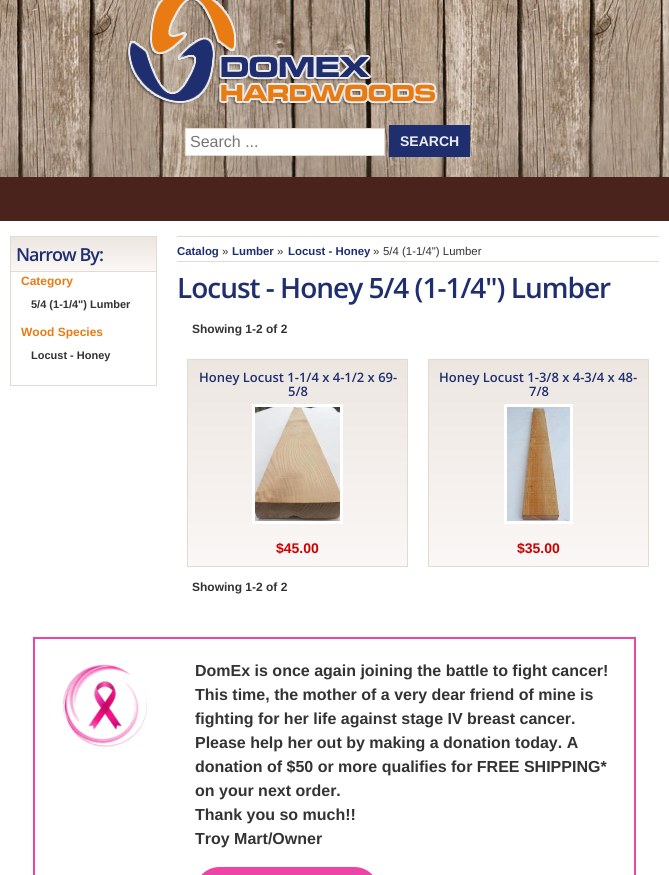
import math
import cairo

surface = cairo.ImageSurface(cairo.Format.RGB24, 669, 875)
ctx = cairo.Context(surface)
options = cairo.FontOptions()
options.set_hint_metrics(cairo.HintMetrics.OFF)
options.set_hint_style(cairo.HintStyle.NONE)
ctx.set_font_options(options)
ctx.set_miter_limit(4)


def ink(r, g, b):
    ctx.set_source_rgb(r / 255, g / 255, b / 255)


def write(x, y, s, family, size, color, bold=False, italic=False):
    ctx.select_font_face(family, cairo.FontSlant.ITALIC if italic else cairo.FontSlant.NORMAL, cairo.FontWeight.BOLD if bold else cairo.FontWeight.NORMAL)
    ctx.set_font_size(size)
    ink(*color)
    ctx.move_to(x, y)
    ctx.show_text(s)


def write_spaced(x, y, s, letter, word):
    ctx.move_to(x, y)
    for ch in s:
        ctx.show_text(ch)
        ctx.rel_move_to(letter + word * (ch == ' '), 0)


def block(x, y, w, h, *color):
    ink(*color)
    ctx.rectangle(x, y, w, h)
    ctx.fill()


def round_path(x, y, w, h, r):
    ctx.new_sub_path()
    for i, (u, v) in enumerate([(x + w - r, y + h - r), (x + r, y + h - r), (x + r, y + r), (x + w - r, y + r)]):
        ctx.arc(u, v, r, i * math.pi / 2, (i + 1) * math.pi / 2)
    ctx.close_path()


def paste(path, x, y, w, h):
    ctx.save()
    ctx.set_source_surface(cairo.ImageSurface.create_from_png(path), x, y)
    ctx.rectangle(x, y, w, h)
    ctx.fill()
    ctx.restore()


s1 = dict(family="Liberation Sans", size=16, color=(117, 117, 117))
s2 = dict(family="Liberation Sans", size=14, color=(236, 236, 236), bold=True)
s3 = dict(family="Liberation Sans", size=12, color=(232, 123, 18), bold=True)
s4 = dict(family="Liberation Sans", size=11, color=(51, 51, 51), bold=True)
s5 = dict(family="Liberation Sans", size=11.4, color=(31, 46, 111), bold=True)
s6 = dict(family="Liberation Sans", size=11.4, color=(51, 51, 51))
s7 = dict(family="Liberation Sans", size=12, color=(51, 51, 51), bold=True)
s8 = dict(family="Open Sans SemiBold", size=13, color=(31, 46, 111))
s9 = dict(family="Liberation Sans", size=14, color=(204, 0, 0), bold=True)
s10 = dict(family="Liberation Sans", size=16, color=(51, 51, 51), bold=True)

ink(255, 255, 255)
ctx.paint()
paste("pic1.png", 0, 0, 669, 177)
paste("pic2.png", 126, 0, 311, 106)
ink(255, 255, 255)
ctx.rectangle(185.5, 128.5, 199, 27)
ctx.fill_preserve()
ink(227, 218, 208)
ctx.set_line_width(1)
ctx.stroke()
write(190, 147, "Search ...", **s1)
block(389, 125, 81, 32, 31, 46, 111)
write(400, 146, "SEARCH", **s2)
block(0, 177, 669, 44, 74, 35, 28)
gradient = cairo.LinearGradient(84, 237, 84, 271)
gradient.add_color_stop_rgba(0, 0.922, 0.902, 0.878, 1)
gradient.add_color_stop_rgba(1, 0.984, 0.969, 0.965, 1)
ctx.set_source(gradient)
ctx.rectangle(11, 237, 145, 34)
ctx.fill()
ctx.rectangle(10.5, 236.5, 146, 35)
ink(227, 218, 208)
ctx.stroke()
ctx.select_font_face("Open Sans SemiBold")
ctx.set_font_size(18)
ink(31, 46, 111)
write_spaced(16, 261, "Narrow By:", -1, 0)
block(156, 272, 1, 114, 227, 218, 208)
block(10, 385, 147, 1, 227, 218, 208)
block(10, 272, 1, 114, 227, 218, 208)
write(21, 285, "Category", **s3)
write(31, 308, "5/4 (1-1/4\") Lumber", **s4)
write(21, 336, "Wood Species", **s3)
write(31, 359, "Locust - Honey", **s4)
block(177, 236, 482, 1, 227, 218, 208)
block(177, 261, 482, 1, 227, 218, 208)
write(177, 255, "Catalog", **s5)
write(222, 255, "»", **s6)
write(232, 255, "Lumber", **s5)
write(277, 255, "»", **s6)
write(288, 255, "Locust - Honey", **s5)
write(373, 255, "»", **s6)
write(383, 255, "5/4 (1-1/4\") Lumber", **s6)
ctx.select_font_face("Open Sans SemiBold")
ctx.set_font_size(28)
ink(31, 46, 111)
write_spaced(177, 298, "Locust - Honey 5/4 (1-1/4\") Lumber", -1, 0)
write(192, 333, "Showing 1-2 of 2", **s7)
gradient = cairo.LinearGradient(298, 360, 298, 566)
gradient.add_color_stop_rgba(0, 0.922, 0.902, 0.878, 1)
gradient.add_color_stop_rgba(1, 0.984, 0.969, 0.965, 1)
ctx.set_source(gradient)
ctx.rectangle(188, 360, 219, 206)
ctx.fill()
ctx.rectangle(187.5, 359.5, 220, 207)
ink(227, 218, 208)
ctx.stroke()
write(199, 382, "Honey Locust 1-1/4 x 4-1/2 x 69-", **s8)
write(288, 396, "5/8", **s8)
block(252, 404, 91, 120, 255, 255, 255)
paste("pic3.png", 255, 407, 85, 114)
write(276, 553, "$45.00", **s9)
gradient = cairo.LinearGradient(539, 360, 539, 566)
gradient.add_color_stop_rgba(0, 0.922, 0.902, 0.878, 1)
gradient.add_color_stop_rgba(1, 0.984, 0.969, 0.965, 1)
ctx.set_source(gradient)
ctx.rectangle(429, 360, 219, 206)
ctx.fill()
ctx.rectangle(428.5, 359.5, 220, 207)
ink(227, 218, 208)
ctx.stroke()
write(439, 382, "Honey Locust 1-3/8 x 4-3/4 x 48-", **s8)
write(529, 396, "7/8", **s8)
block(504, 404, 69, 120, 255, 255, 255)
paste("pic4.png", 507, 407, 63, 114)
write(517, 553, "$35.00", **s9)
write(192, 591, "Showing 1-2 of 2", **s7)
ctx.rectangle(34, 638, 601, 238)
ink(239, 68, 166)
ctx.set_line_width(2)
ctx.stroke()
paste("pic5.png", 62, 664, 86, 84)
write(195, 676, "DomEx is once again joining the battle to fight cancer!", **s10)
write(195, 700, "This time, the mother of a very dear friend of mine is", **s10)
write(195, 724, "fighting for her life against stage IV breast cancer.", **s10)
write(195, 748, "Please help her out by making a donation today. A", **s10)
write(195, 772, "donation of $50 or more qualifies for FREE SHIPPING*", **s10)
write(195, 796, "on your next order.", **s10)
write(195, 820, "Thank you so much!!", **s10)
write(195, 844, "Troy Mart/Owner", **s10)
ink(239, 68, 166)
round_path(196, 868, 182, 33, 23.5)
ctx.fill_preserve()
ctx.stroke()
surface.write_to_png("screenshot.png")
